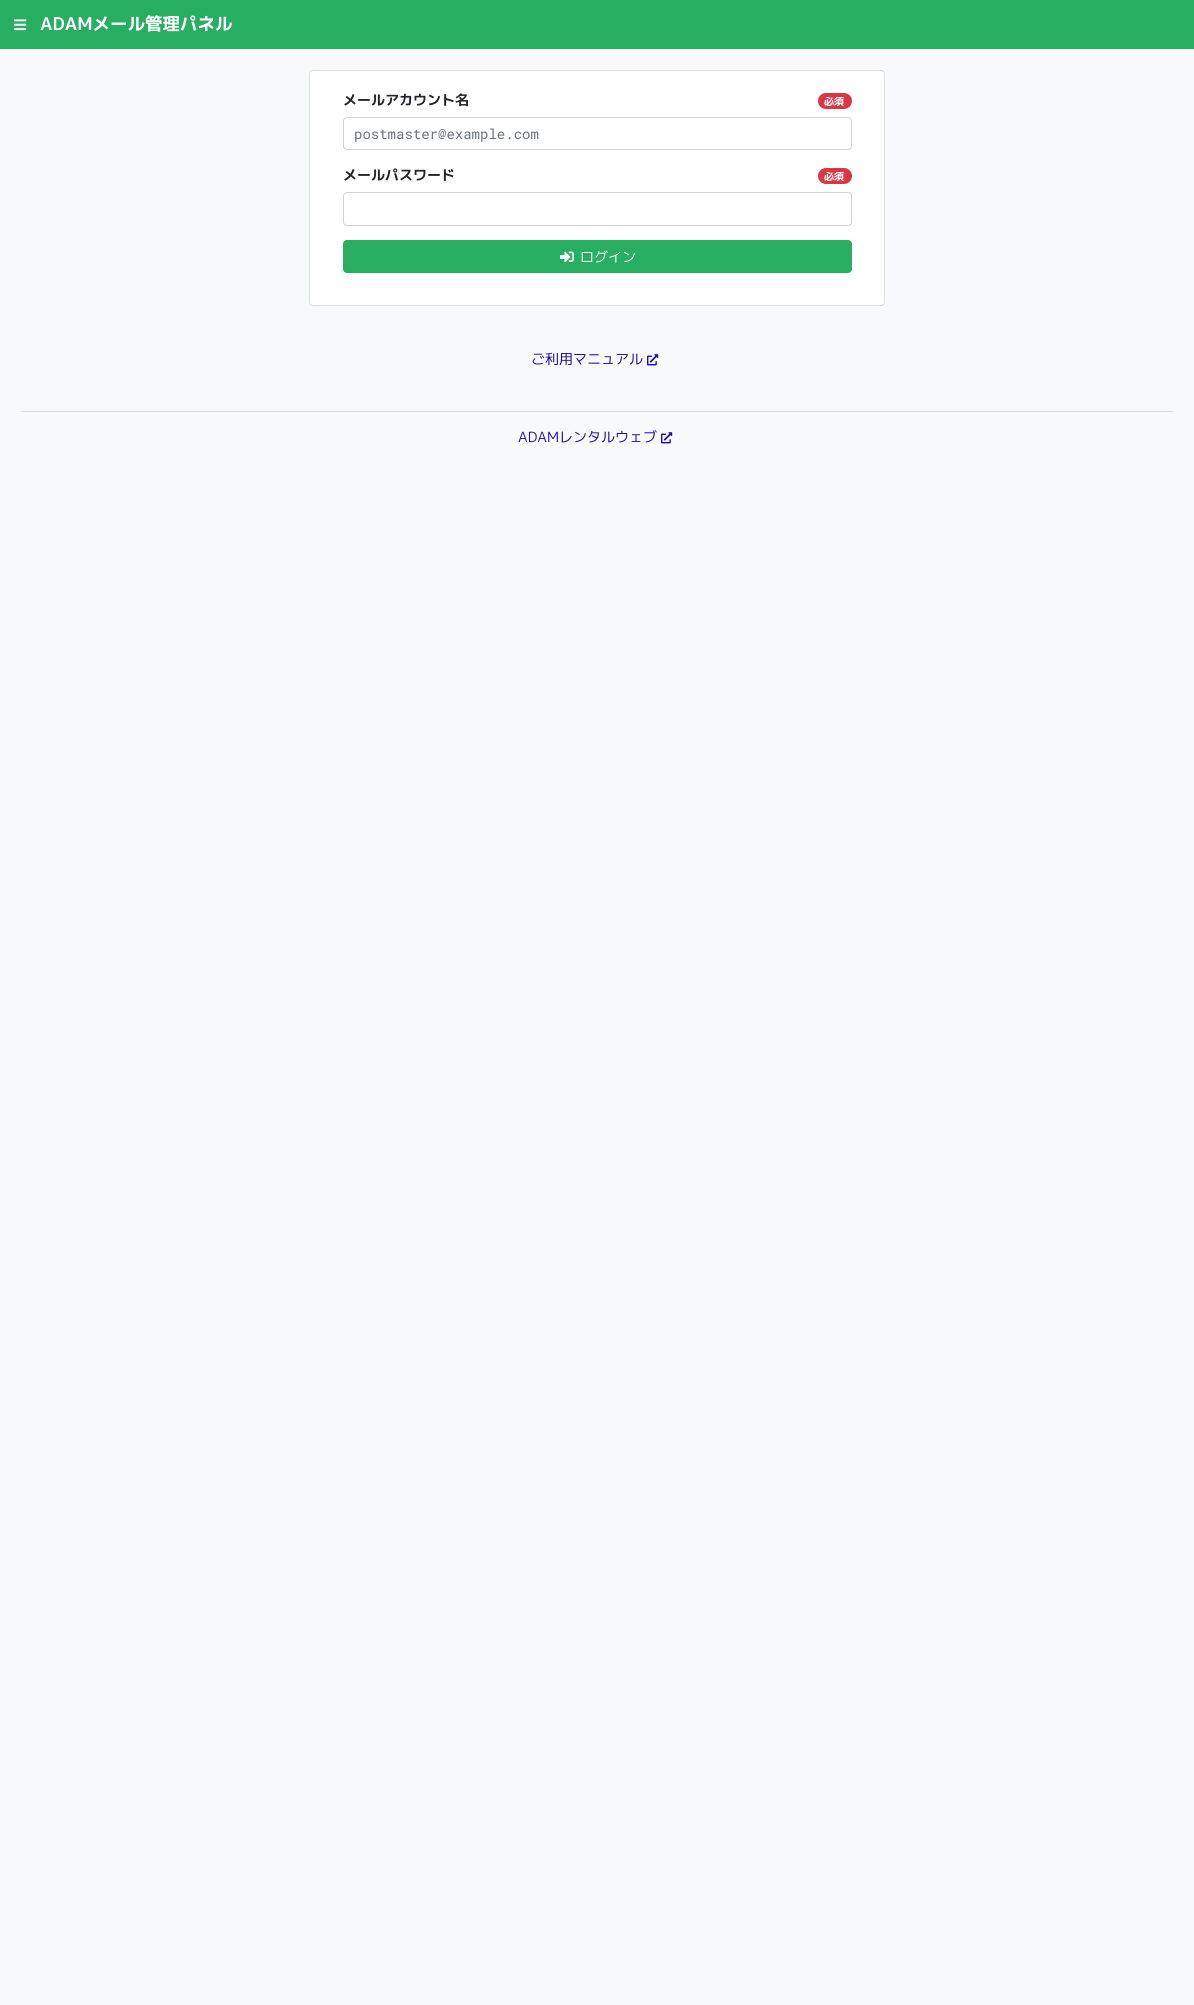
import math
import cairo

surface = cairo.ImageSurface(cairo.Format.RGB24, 1194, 2005)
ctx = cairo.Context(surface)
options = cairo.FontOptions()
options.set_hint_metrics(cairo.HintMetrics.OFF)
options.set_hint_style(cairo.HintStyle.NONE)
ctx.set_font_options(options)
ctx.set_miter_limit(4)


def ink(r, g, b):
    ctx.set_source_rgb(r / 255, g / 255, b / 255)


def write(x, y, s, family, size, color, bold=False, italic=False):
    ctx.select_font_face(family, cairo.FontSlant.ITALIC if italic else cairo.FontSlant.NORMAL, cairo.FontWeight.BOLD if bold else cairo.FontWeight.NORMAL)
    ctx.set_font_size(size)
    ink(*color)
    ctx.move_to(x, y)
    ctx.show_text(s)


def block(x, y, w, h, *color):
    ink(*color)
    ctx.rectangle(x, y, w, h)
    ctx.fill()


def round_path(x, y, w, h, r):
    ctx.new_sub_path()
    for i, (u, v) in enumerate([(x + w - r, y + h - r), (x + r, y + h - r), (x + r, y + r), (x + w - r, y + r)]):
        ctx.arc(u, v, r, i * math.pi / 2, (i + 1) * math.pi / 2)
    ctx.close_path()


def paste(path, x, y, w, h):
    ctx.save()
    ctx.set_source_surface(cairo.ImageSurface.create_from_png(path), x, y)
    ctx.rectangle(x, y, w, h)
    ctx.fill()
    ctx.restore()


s1 = dict(family="M PLUS 1p", size=17.5, color=(255, 255, 255), bold=True)
s2 = dict(family="M PLUS 1p", size=14, color=(33, 37, 41), bold=True)
s3 = dict(family="M PLUS 1p", size=10, color=(255, 255, 255), bold=True)
s4 = dict(family="Roboto Mono", size=14, color=(108, 117, 125))
s5 = dict(family="M PLUS 1p", size=14, color=(255, 255, 255))
s6 = dict(family="M PLUS 1p", size=14, color=(26, 13, 171))

ink(248, 249, 250)
ctx.paint()
block(0, 0, 1194, 49, 39, 174, 96)
paste("pic1.png", 14, 19, 13, 12)
write(40, 30, "ADAMメール管理パネル", **s1)
round_path(309.5, 70.5, 575, 235, 3.5)
ctx.fill_preserve()
ink(223, 223, 223)
ctx.set_line_width(1)
ctx.stroke()
write(343, 105, "メールアカウント名", **s2)
ink(220, 53, 69)
round_path(818, 93, 34, 16, 8)
ctx.fill()
write(824, 105, "必須", **s3)
round_path(343.5, 117.5, 508, 32, 3.5)
ink(206, 212, 218)
ctx.stroke()
write(354, 139, "postmaster@example.com", **s4)
write(343, 180, "メールパスワード", **s2)
ink(220, 53, 69)
round_path(818, 168, 34, 16, 8)
ctx.fill()
write(824, 180, "必須", **s3)
round_path(343.5, 192.5, 508, 33, 3.5)
ink(206, 212, 218)
ctx.stroke()
ink(39, 174, 96)
round_path(343.5, 240.5, 508, 32, 3.5)
ctx.fill_preserve()
ctx.stroke()
paste("pic2.png", 560, 251, 14, 12)
write(580, 262, "ログイン", **s5)
write(531, 364, "ご利用マニュアル", **s6)
paste("pic3.png", 647, 354, 12, 12)
block(21, 411, 1152, 1, 223, 224, 225)
write(518, 442, "ADAMレンタルウェブ", **s6)
paste("pic3.png", 661, 432, 12, 12)
surface.write_to_png("screenshot.png")
